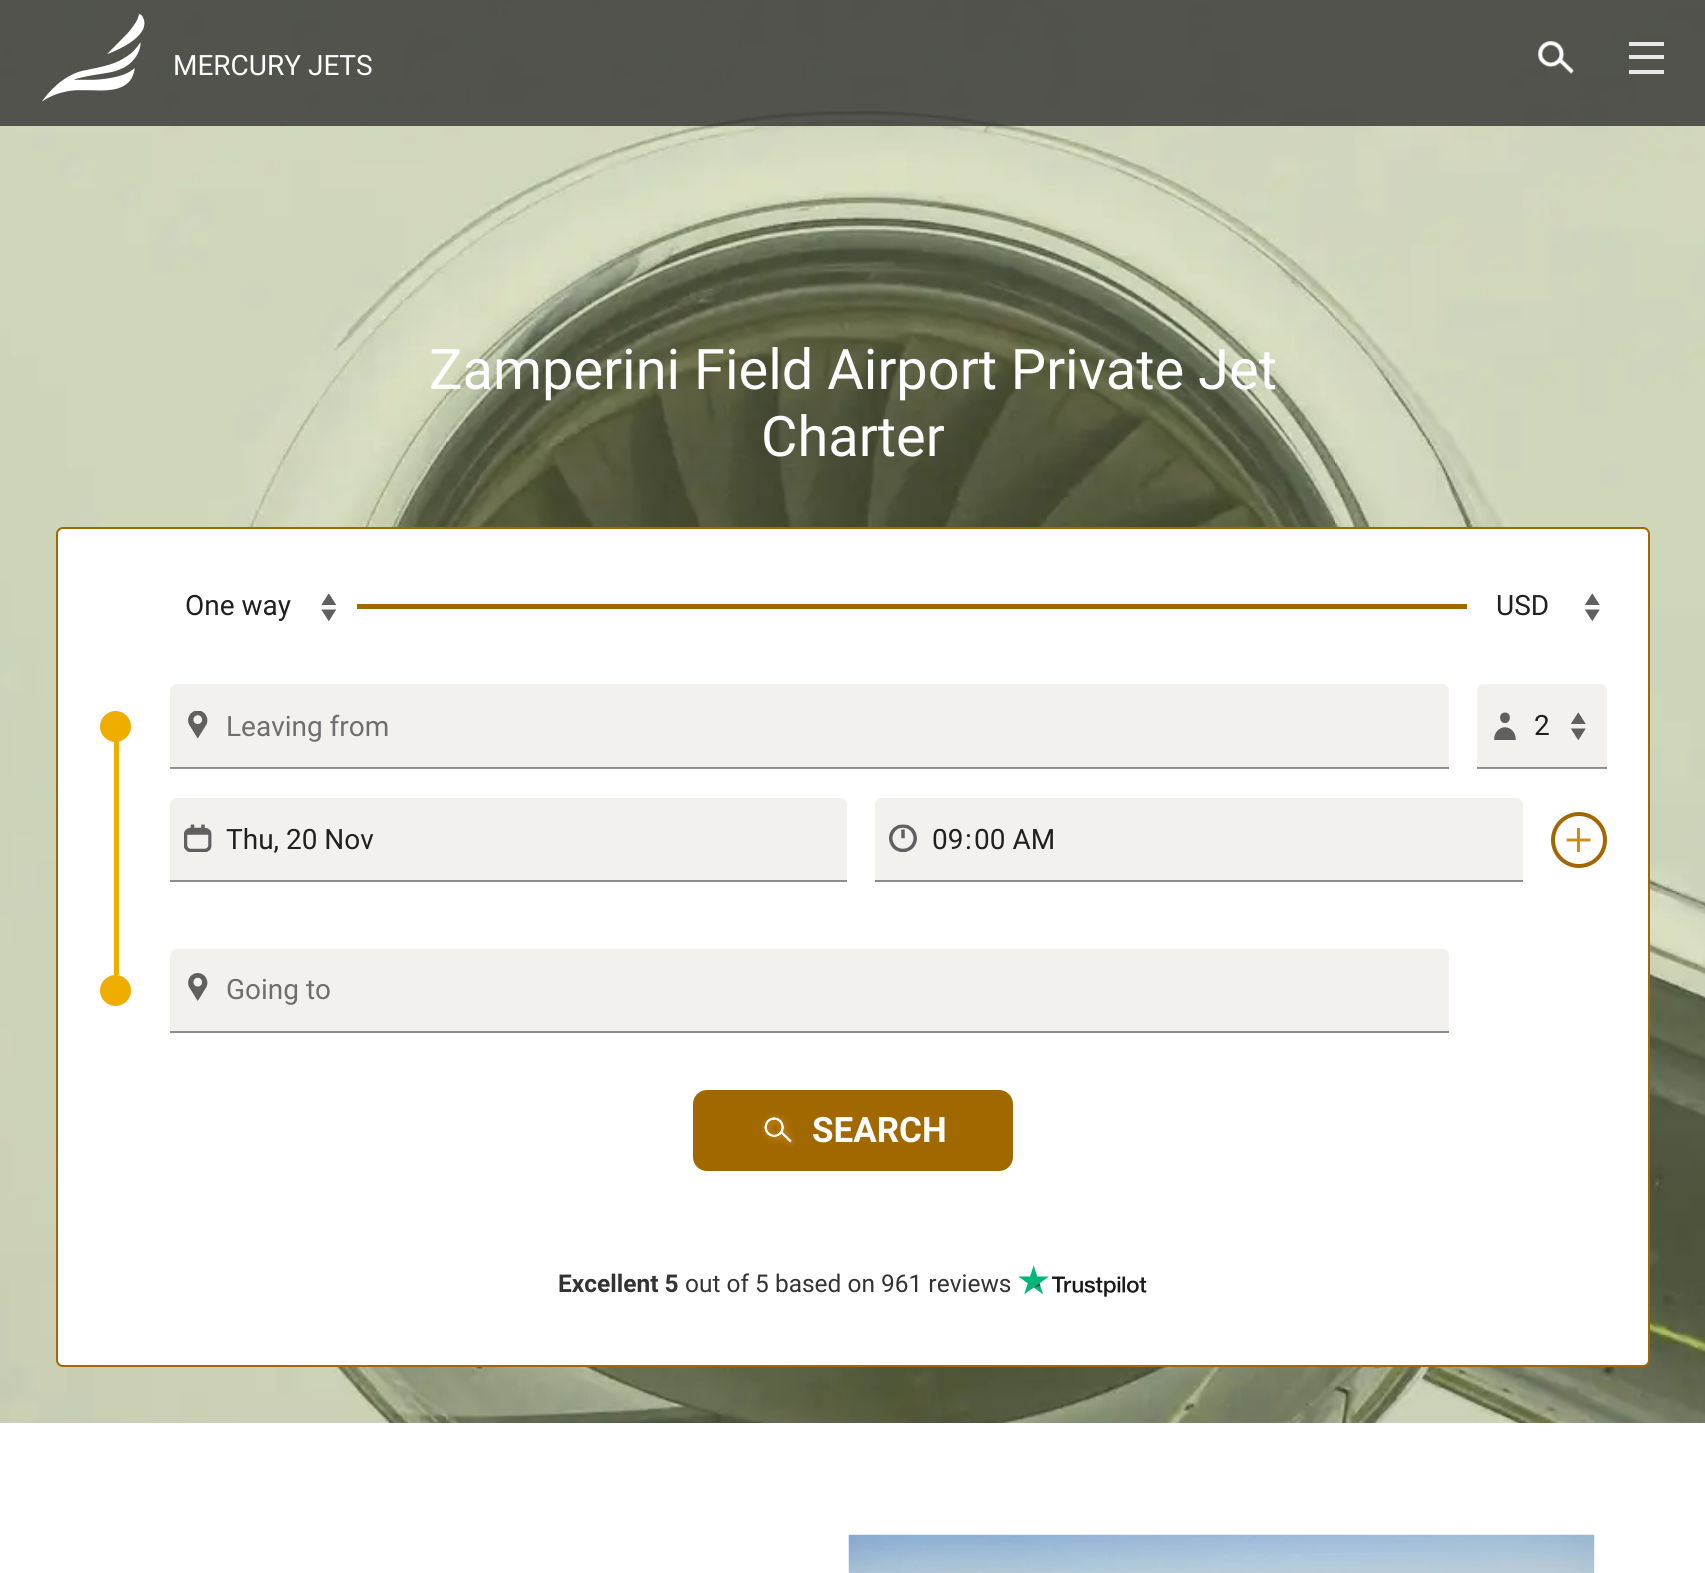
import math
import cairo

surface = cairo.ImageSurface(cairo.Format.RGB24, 1705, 1573)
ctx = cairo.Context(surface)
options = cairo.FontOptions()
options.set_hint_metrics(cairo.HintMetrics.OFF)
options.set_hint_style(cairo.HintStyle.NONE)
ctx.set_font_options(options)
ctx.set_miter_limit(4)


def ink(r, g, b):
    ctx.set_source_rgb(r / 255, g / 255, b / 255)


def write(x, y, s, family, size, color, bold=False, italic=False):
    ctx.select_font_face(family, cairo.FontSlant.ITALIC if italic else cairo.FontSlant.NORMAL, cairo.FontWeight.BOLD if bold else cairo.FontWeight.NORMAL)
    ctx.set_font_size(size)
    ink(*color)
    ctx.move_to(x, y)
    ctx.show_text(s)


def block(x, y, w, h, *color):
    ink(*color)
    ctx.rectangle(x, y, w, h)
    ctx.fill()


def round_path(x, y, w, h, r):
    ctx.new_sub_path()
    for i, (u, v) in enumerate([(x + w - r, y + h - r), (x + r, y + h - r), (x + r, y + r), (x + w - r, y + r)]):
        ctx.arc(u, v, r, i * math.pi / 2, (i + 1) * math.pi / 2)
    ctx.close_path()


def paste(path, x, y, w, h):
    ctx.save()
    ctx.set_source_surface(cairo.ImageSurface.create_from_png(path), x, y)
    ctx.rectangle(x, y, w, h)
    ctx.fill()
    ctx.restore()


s1 = dict(family="Roboto", size=28, color=(253, 253, 253))
s2 = dict(family="Roboto", size=56, color=(253, 253, 253))
s3 = dict(family="Roboto", size=28, color=(32, 32, 32))
s4 = dict(family="Roboto", size=28, color=(110, 110, 110))
s5 = dict(family="Roboto", size=35, color=(253, 253, 253), bold=True)
s6 = dict(family="Roboto", size=24.5, color=(51, 51, 51), bold=True)
s7 = dict(family="Roboto", size=24.5, color=(51, 51, 51))

ink(255, 255, 255)
ctx.paint()
paste("pic3.png", 0, 0, 1705, 1423)
ctx.set_source_rgba(0.153, 0.153, 0.153, 0.75)
ctx.rectangle(0, 0, 1705, 126)
ctx.fill()
paste("pic1.png", 42, 14, 103, 88)
write(173, 75, "MERCURY JETS", **s1)
paste("pic2.png", 1538, 41, 36, 33)
block(1629, 42, 35, 4, 233, 233, 233)
block(1629, 55, 35, 4, 233, 233, 233)
block(1629, 70, 35, 4, 233, 233, 233)
write(429, 389, "Zamperini Field Airport Private Jet", **s2)
write(761, 456, "Charter", **s2)
ink(255, 255, 255)
round_path(57, 528, 1592, 838, 6)
ctx.fill_preserve()
ink(161, 104, 0)
ctx.stroke()
paste("pic4.png", 321, 593, 16, 28)
write(185, 615, "One way", **s3)
block(357, 604, 1110, 5, 161, 104, 0)
paste("pic5.png", 1584, 593, 16, 28)
write(1496, 615, "USD", **s3)
block(114, 741, 5, 234, 239, 173, 0)
ctx.new_path()
ctx.arc(115.5, 726.5, 15.5, 0, 2 * math.pi)
ctx.fill()
ink(243, 241, 238)
ctx.new_path()
ctx.move_to(177, 684)
ctx.line_to(1442, 684)
ctx.curve_to(1446, 684, 1449, 687, 1449, 691)
ctx.line_to(1449, 768)
ctx.line_to(170, 768)
ctx.line_to(170, 691)
ctx.curve_to(170, 687, 173, 684, 177, 684)
ctx.close_path()
ctx.fill()
paste("pic6.png", 188, 711, 20, 28)
ctx.set_source_rgba(0, 0, 0, 0.42)
ctx.rectangle(170, 767, 1279, 2)
ctx.fill()
write(226, 736, "Leaving from", **s4)
ink(243, 241, 238)
ctx.new_path()
ctx.move_to(1484, 684)
ctx.line_to(1600, 684)
ctx.curve_to(1604, 684, 1607, 687, 1607, 691)
ctx.line_to(1607, 768)
ctx.line_to(1477, 768)
ctx.line_to(1477, 691)
ctx.curve_to(1477, 687, 1480, 684, 1484, 684)
ctx.close_path()
ctx.fill()
ctx.set_source_rgba(0, 0, 0, 0.42)
ctx.rectangle(1477, 767, 130, 2)
ctx.fill()
paste("pic7.png", 1494, 712, 22, 28)
write(1534, 735, "2", **s3)
paste("pic8.png", 1571, 712, 15, 28)
ink(243, 241, 238)
ctx.new_path()
ctx.move_to(177, 798)
ctx.line_to(840, 798)
ctx.curve_to(844, 798, 847, 801, 847, 805)
ctx.line_to(847, 882)
ctx.line_to(170, 882)
ctx.line_to(170, 805)
ctx.curve_to(170, 801, 173, 798, 177, 798)
ctx.close_path()
ctx.fill()
paste("pic9.png", 184, 824, 28, 28)
block(170, 880, 677, 2, 141, 140, 138)
write(226, 849, "Thu, 20 Nov", **s3)
ink(243, 241, 238)
ctx.new_path()
ctx.move_to(882, 798)
ctx.line_to(1516, 798)
ctx.curve_to(1520, 798, 1523, 801, 1523, 805)
ctx.line_to(1523, 882)
ctx.line_to(875, 882)
ctx.line_to(875, 805)
ctx.curve_to(875, 801, 878, 798, 882, 798)
ctx.close_path()
ctx.fill()
paste("pic10.png", 889, 824, 28, 28)
block(875, 880, 648, 2, 141, 140, 138)
write(932, 849, "09", **s3)
write(965, 849, ":", **s3)
write(974, 849, "00 AM", **s3)
paste("pic11.png", 1566, 828, 25, 24)
ctx.arc(1579, 840, 26, 0, 2 * math.pi)
ink(161, 104, 0)
ctx.set_line_width(4)
ctx.stroke()
ink(239, 173, 0)
ctx.arc(115.5, 990.5, 15.5, 0, 2 * math.pi)
ctx.fill()
ink(243, 241, 238)
ctx.new_path()
ctx.move_to(177, 949)
ctx.line_to(1442, 949)
ctx.curve_to(1446, 949, 1449, 952, 1449, 956)
ctx.line_to(1449, 1033)
ctx.line_to(170, 1033)
ctx.line_to(170, 956)
ctx.curve_to(170, 952, 173, 949, 177, 949)
ctx.close_path()
ctx.fill()
paste("pic12.png", 188, 973, 20, 28)
block(170, 1031, 1279, 2, 141, 140, 138)
write(226, 999, "Going to", **s4)
ink(161, 104, 0)
round_path(693, 1090, 320, 81, 14)
ctx.fill()
paste("pic13.png", 761, 1114, 34, 33)
write(812, 1142, "SEARCH", **s5)
write(558, 1292, "Excellent 5", **s6)
write(685, 1292, "out of 5 based on 961 reviews", **s7)
paste("pic14.png", 1018, 1265, 129, 32)
paste("pic15.png", 848, 1534, 747, 39)
surface.write_to_png("screenshot.png")
